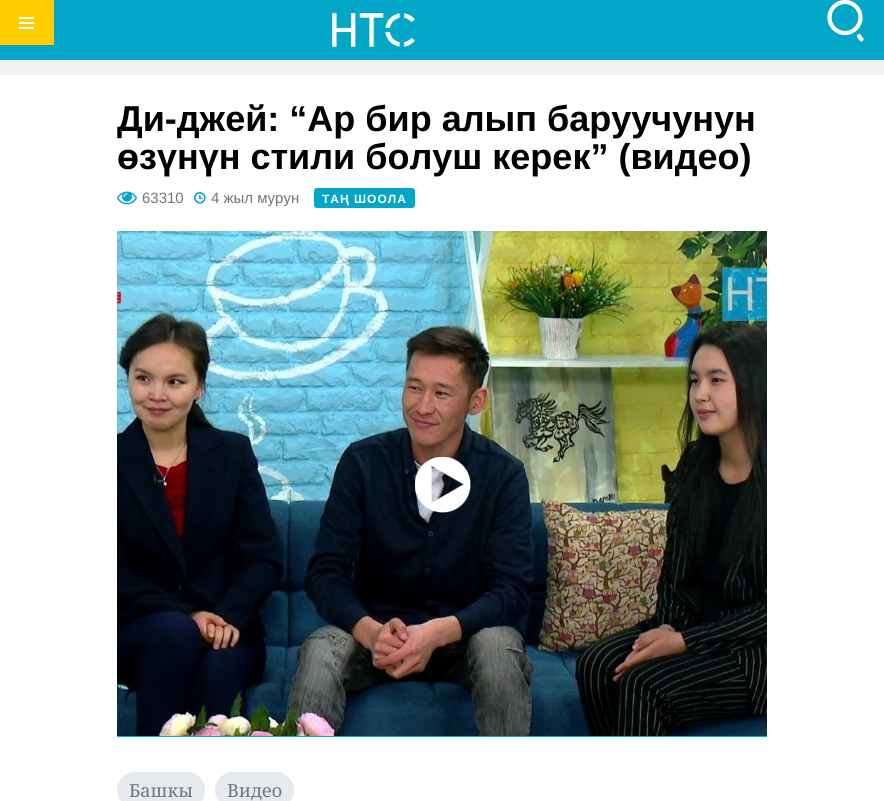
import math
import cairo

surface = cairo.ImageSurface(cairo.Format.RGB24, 884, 801)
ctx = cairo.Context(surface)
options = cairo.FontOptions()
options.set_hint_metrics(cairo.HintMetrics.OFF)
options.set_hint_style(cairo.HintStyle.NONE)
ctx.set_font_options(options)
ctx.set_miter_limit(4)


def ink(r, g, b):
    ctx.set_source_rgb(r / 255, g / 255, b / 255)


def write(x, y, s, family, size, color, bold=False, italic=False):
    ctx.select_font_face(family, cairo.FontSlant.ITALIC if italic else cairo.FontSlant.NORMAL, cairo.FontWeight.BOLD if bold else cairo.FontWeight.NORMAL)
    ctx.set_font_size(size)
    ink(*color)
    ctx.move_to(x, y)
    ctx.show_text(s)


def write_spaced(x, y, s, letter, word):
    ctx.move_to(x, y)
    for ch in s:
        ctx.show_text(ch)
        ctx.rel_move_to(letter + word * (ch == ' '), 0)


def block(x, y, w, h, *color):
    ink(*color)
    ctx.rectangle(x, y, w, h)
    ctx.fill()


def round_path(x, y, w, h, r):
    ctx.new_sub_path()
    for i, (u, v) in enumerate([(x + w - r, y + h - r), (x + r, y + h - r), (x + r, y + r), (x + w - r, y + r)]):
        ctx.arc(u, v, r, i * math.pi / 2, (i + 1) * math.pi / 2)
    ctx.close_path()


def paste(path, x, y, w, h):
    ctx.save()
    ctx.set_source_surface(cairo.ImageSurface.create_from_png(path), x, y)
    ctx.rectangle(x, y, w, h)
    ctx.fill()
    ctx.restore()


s1 = dict(family="Liberation Sans", size=36, color=(0, 0, 0), bold=True)
s2 = dict(family="Liberation Sans", size=15, color=(117, 117, 117))
s3 = dict(family="Noto Serif", size=18, color=(117, 117, 117))

ink(2, 166, 198)
ctx.paint()
block(0, 0, 54, 45, 255, 206, 1)
block(19, 17, 15, 2, 255, 255, 255)
block(19, 22, 15, 2, 255, 255, 255)
block(19, 27, 15, 2, 255, 255, 255)
paste("pic1.png", 332, 13, 83, 34)
ctx.arc(845, 17.5, 15.5, 0, 2 * math.pi)
ctx.set_line_width(4.2)
ctx.stroke()
ctx.new_path()
ctx.move_to(861.5, 39.5)
ctx.line_to(859, 36)
ctx.set_line_cap(cairo.LineCap.ROUND)
ctx.set_line_join(cairo.LineJoin.ROUND)
ctx.stroke()
block(0, 60, 884, 15, 242, 242, 242)
block(0, 75, 884, 726, 255, 255, 255)
write(117, 131, "Ди-джей: “Ар бир алып баруучунун", **s1)
write(117, 169, "өзүнүн стили болуш керек” (видео)", **s1)
paste("pic2.png", 117, 191, 20, 14)
write(142, 203, "63310", **s2)
paste("pic3.png", 194, 192, 12, 12)
write(211, 203, "4 жыл мурун", **s2)
ink(2, 166, 198)
round_path(314.5, 188.5, 100, 19, 2.5)
ctx.fill_preserve()
ctx.set_line_width(1)
ctx.set_line_cap(cairo.LineCap.BUTT)
ctx.set_line_join(cairo.LineJoin.MITER)
ctx.stroke()
ctx.select_font_face("Liberation Sans", cairo.FontSlant.NORMAL, cairo.FontWeight.BOLD)
ctx.set_font_size(12)
ink(255, 255, 255)
write_spaced(322, 203, "ТАҢ ШООЛА", 1, 0)
paste("pic4.png", 117, 231, 650, 505)
paste("pic5.png", 415, 457, 56, 56)
block(117, 736, 650, 1, 2, 166, 198)
ink(230, 233, 237)
round_path(117, 772, 88, 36, 18)
ctx.fill()
write(129, 797, "Башкы", **s3)
ink(230, 233, 237)
round_path(215, 772, 79, 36, 18)
ctx.fill()
write(227, 797, "Видео", **s3)
surface.write_to_png("screenshot.png")
